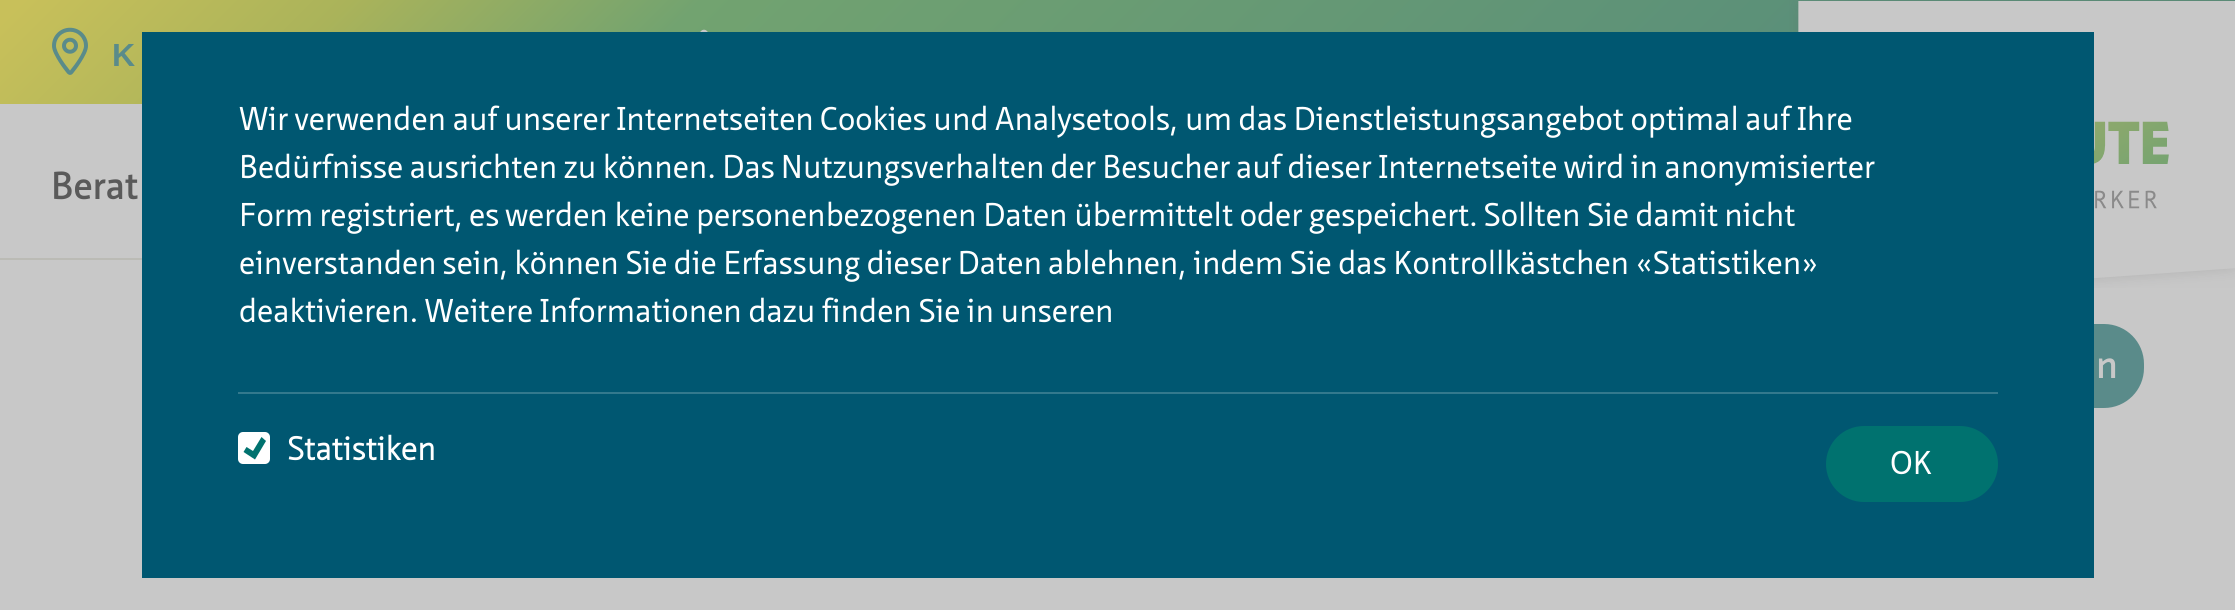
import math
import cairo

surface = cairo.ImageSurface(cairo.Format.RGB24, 2235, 610)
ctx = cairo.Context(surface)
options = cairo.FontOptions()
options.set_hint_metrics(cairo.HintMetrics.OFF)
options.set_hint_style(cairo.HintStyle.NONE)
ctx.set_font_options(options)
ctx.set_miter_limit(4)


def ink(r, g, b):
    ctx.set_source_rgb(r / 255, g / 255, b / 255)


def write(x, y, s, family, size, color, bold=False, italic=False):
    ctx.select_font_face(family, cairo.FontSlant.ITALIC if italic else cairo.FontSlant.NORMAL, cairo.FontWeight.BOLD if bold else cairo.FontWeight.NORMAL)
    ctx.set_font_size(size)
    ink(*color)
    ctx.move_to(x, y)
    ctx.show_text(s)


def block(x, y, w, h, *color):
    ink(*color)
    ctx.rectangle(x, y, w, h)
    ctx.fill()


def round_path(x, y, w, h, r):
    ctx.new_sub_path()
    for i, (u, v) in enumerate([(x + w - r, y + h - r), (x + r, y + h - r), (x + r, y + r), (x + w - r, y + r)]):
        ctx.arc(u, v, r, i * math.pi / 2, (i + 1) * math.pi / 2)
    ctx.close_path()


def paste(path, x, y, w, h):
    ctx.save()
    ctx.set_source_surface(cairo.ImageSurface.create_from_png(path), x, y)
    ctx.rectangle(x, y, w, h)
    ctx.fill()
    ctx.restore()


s1 = dict(family="Liberation Sans", size=32, color=(90, 139, 138), bold=True)
s2 = dict(family="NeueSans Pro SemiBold", size=38, color=(90, 90, 90))
s3 = dict(family="NeueSans Pro SemiBold", size=38, color=(200, 200, 200))
s4 = dict(family="NeueSans Pro", size=32, color=(255, 255, 255))
s5 = dict(family="NeueSans Pro", size=32, color=(255, 255, 255), bold=True)

ink(200, 200, 200)
ctx.paint()
gradient = cairo.LinearGradient(533, -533, 1703, 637)
gradient.add_color_stop_rgba(0.01, 0.784, 0.753, 0.353, 1)
gradient.add_color_stop_rgba(0.15, 0.667, 0.702, 0.353, 1)
gradient.add_color_stop_rgba(0.3, 0.447, 0.639, 0.439, 1)
gradient.add_color_stop_rgba(0.8, 0.353, 0.561, 0.475, 1)
ctx.set_source(gradient)
ctx.rectangle(0, 0, 2235, 104)
ctx.fill()
paste("pic1.png", 700, 29, 8, 3)
paste("pic2.png", 52, 27, 36, 48)
write(112, 66, "K", **s1)
block(0, 258, 142, 2, 187, 187, 181)
write(51, 199, "Berat", **s2)
paste("pic3.png", 1789, 0, 446, 288)
ink(90, 139, 138)
round_path(1893, 325, 250, 82, 39)
ctx.fill_preserve()
ctx.stroke()
write(2096, 378, "n", **s3)
block(142, 32, 1952, 546, 0, 87, 113)
write(239, 130, "Wir verwenden auf unserer Internetseiten Cookies und Analysetools, um das Dienstleistungsangebot optimal auf Ihre", **s4)
write(239, 178, "Bedürfnisse ausrichten zu können. Das Nutzungsverhalten der Besucher auf dieser Internetseite wird in anonymisierter", **s4)
write(239, 226, "Form registriert, es werden keine personenbezogenen Daten übermittelt oder gespeichert. Sollten Sie damit nicht", **s4)
write(239, 274, "einverstanden sein, können Sie die Erfassung dieser Daten ablehnen, indem Sie das Kontrollkästchen «Statistiken»", **s4)
write(239, 322, "deaktivieren. Weitere Informationen dazu finden Sie in unseren", **s4)
block(238, 392, 1760, 2, 51, 121, 141)
ink(255, 255, 255)
round_path(238, 432, 32, 32, 5)
ctx.fill()
ink(0, 114, 111)
ctx.new_path()
ctx.move_to(246.5, 447)
ctx.line_to(253, 451)
ctx.line_to(261.5, 437)
ctx.line_to(266, 441)
ctx.line_to(255, 459.5)
ctx.line_to(243.5, 452)
ctx.close_path()
ctx.fill()
write(287, 460, "Statistiken", **s5)
ink(0, 114, 111)
round_path(1826, 426, 172, 76, 38)
ctx.fill()
write(1890, 474, "OK", **s4)
surface.write_to_png("screenshot.png")
